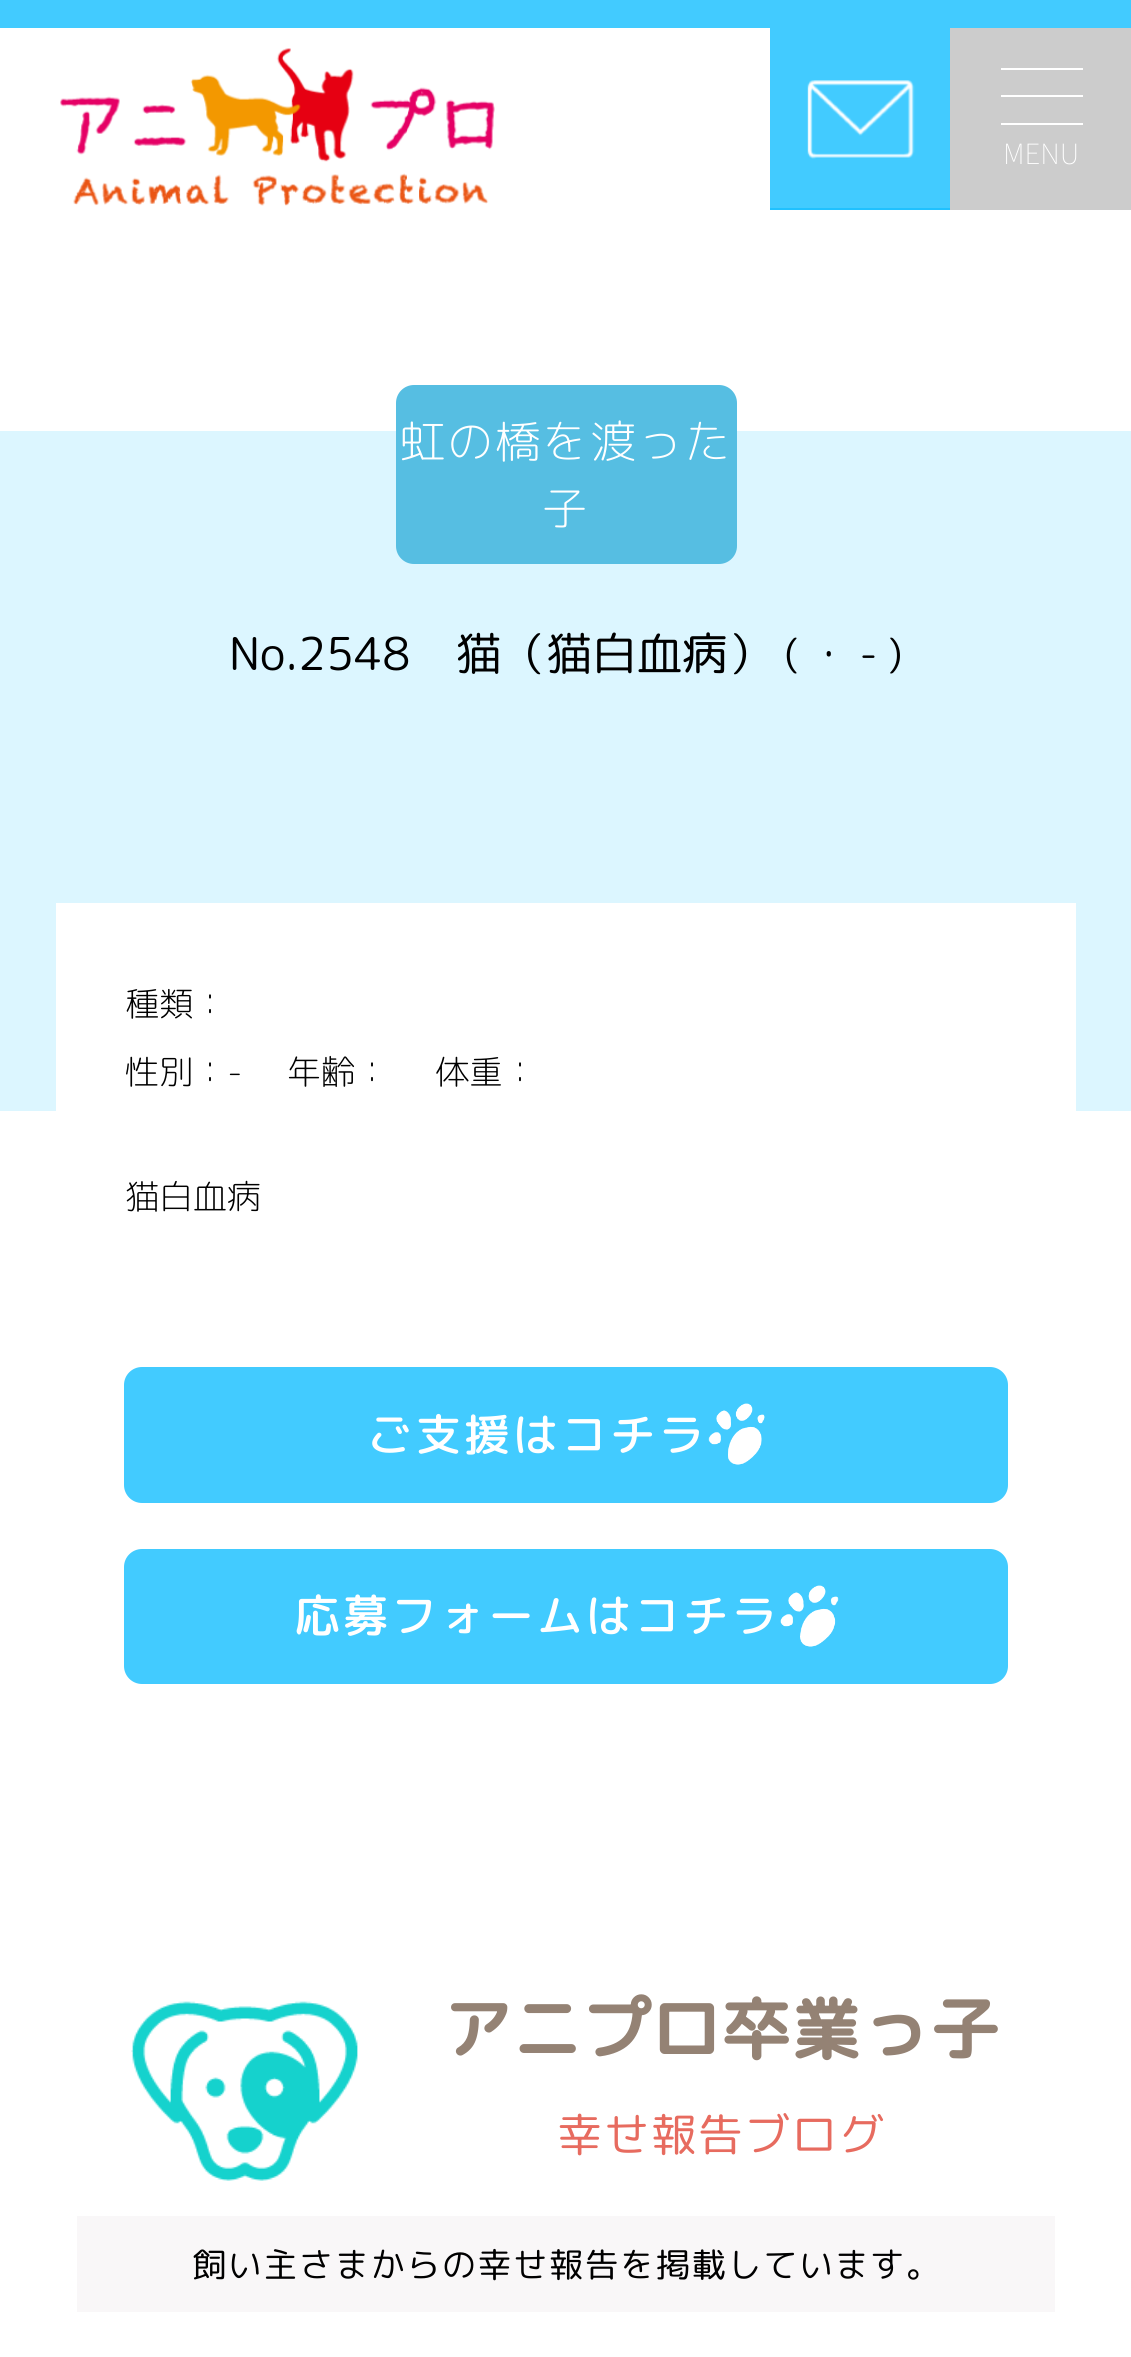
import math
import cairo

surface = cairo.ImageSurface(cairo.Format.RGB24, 1131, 2357)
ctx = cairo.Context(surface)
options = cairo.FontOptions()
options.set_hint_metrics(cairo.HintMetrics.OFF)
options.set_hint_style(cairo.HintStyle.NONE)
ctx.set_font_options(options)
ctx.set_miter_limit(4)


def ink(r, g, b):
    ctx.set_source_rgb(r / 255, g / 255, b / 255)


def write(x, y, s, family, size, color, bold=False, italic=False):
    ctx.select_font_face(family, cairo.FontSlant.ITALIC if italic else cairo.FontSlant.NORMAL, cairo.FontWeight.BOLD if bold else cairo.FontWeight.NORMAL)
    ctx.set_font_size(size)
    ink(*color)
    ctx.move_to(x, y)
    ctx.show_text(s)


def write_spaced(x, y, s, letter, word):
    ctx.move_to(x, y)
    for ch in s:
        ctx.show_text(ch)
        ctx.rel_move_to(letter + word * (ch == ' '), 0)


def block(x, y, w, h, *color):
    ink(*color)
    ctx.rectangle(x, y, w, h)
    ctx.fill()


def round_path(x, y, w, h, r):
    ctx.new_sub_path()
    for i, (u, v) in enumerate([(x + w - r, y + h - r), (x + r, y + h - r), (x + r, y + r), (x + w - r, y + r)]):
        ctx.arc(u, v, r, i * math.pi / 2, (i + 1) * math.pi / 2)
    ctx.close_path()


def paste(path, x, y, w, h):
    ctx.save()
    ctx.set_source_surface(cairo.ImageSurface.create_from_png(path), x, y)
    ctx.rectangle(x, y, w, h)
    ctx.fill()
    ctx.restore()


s1 = dict(family="Noto Sans JP Thin", size=28, color=(255, 255, 255))
s2 = dict(family="Rounded Mplus 1c", size=45.25, color=(0, 0, 0))
s3 = dict(family="Rounded Mplus 1c", size=39.5, color=(0, 0, 0))
s4 = dict(family="Rounded Mplus 1c Light", size=34, color=(0, 0, 0))

ink(255, 255, 255)
ctx.paint()
block(0, 0, 1131, 28, 66, 203, 255)
paste("pic1.png", 60, 48, 435, 158)
block(770, 28, 180, 180, 66, 203, 255)
block(770, 208, 180, 2, 32, 193, 255)
paste("pic2.png", 807, 80, 108, 79)
block(950, 28, 181, 182, 204, 204, 204)
block(1001, 68, 82, 2, 255, 255, 255)
block(1001, 95, 82, 2, 255, 255, 255)
block(1001, 123, 82, 2, 255, 255, 255)
write(1003, 164, "MENU", **s1)
block(0, 431, 1131, 680, 220, 246, 255)
ink(86, 190, 226)
round_path(396, 385, 341, 179, 18)
ctx.fill()
ctx.select_font_face("Rounded Mplus 1c Light")
ctx.set_font_size(45.25)
ink(255, 255, 255)
write_spaced(400, 458, "虹の橋を渡った", 2.25, 0)
write_spaced(542, 525, "子", 2.25, 0)
write(229, 670, "No.2548", **s2)
write(456, 670, "猫（猫白血病）", **s2)
write(784, 668, "( ・ - )", **s3)
block(56, 903, 1020, 208, 255, 255, 255)
write(125, 1016, "種類：", **s4)
write(125, 1084, "性別：-", **s4)
write(287, 1084, "年齢：", **s4)
write(435, 1084, "体重：", **s4)
write(125, 1209, "猫白血病", **s4)
ink(66, 203, 255)
round_path(124, 1367, 884, 136, 18)
ctx.fill()
ctx.select_font_face("Rounded Mplus 1c Medium")
ctx.set_font_size(45.25)
ink(255, 255, 255)
write_spaced(367, 1451, "ご支援はコチラ", 3.4, 0)
paste("pic3.png", 708, 1403, 57, 62)
ink(66, 203, 255)
round_path(124, 1549, 884, 135, 18)
ctx.fill()
ink(255, 255, 255)
write_spaced(294, 1632, "応募フォームはコチラ", 3.4, 0)
paste("pic4.png", 780, 1585, 59, 62)
paste("pic5.png", 131, 2001, 227, 180)
ctx.select_font_face("Rounded Mplus 1c", cairo.FontSlant.NORMAL, cairo.FontWeight.BOLD)
ctx.set_font_size(68)
ink(148, 130, 116)
write_spaced(443, 2054, "アニプロ卒業っ子", 1.7, 0)
ctx.select_font_face("Rounded Mplus 1c")
ctx.set_font_size(45.25)
ink(231, 107, 95)
write_spaced(557, 2151, "幸せ報告ブログ", 1.7, 0)
block(77, 2216, 978, 96, 249, 247, 248)
ctx.set_font_size(34)
ink(0, 0, 0)
write_spaced(192, 2277, "飼い主さまからの幸せ報告を掲載しています。", 1.7, 0)
surface.write_to_png("screenshot.png")
